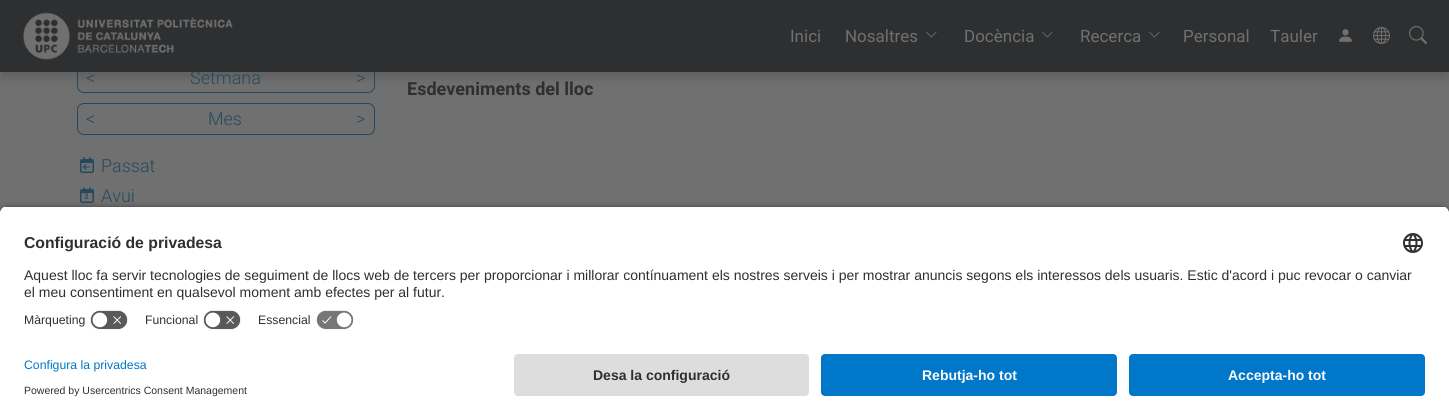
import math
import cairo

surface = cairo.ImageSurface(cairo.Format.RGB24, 1449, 420)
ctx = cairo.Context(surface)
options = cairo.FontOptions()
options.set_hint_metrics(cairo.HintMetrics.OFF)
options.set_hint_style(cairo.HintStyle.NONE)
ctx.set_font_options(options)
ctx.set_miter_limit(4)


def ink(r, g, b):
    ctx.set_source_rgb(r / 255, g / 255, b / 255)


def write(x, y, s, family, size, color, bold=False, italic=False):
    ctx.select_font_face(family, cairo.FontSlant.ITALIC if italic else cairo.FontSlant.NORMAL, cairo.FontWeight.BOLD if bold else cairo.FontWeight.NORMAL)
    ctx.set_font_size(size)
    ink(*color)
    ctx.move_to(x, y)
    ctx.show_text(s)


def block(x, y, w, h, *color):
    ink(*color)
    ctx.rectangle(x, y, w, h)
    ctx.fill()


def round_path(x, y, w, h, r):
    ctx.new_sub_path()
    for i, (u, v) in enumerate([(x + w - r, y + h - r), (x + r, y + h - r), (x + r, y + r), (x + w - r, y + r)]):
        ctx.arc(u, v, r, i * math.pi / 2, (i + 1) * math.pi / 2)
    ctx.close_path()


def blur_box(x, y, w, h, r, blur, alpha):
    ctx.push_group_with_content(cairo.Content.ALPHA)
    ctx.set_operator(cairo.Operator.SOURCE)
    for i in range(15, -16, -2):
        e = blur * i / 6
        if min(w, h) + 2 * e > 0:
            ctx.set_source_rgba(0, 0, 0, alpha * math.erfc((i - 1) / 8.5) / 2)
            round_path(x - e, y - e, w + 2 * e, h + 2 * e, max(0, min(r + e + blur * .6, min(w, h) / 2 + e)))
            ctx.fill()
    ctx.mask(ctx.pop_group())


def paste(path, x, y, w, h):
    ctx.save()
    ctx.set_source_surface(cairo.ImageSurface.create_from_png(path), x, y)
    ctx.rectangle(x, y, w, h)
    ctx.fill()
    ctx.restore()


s1 = dict(family="Roboto Light", size=18, color=(36, 73, 94))
s2 = dict(family="Roboto", size=17, color=(112, 112, 112))
s3 = dict(family="Roboto Medium", size=8, color=(36, 73, 94))
s4 = dict(family="Roboto", size=18, color=(46, 47, 48), bold=True)
s5 = dict(family="Liberation Sans", size=15.75, color=(46, 47, 48), bold=True)
s6 = dict(family="Liberation Sans", size=14, color=(46, 47, 48))
s7 = dict(family="Liberation Sans", size=12.25, color=(46, 47, 48))
s8 = dict(family="Liberation Sans", size=12.25, color=(0, 119, 200))
s9 = dict(family="Liberation Sans", size=10.5, color=(46, 47, 48))
s10 = dict(family="Liberation Sans", size=14, color=(46, 47, 48), bold=True)
s11 = dict(family="Liberation Sans", size=14, color=(250, 250, 250), bold=True)

ink(112, 112, 112)
ctx.paint()
round_path(77.5, 62.5, 297, 30, 6.5)
ink(36, 73, 94)
ctx.set_line_width(1)
ctx.stroke()
ink(36, 36, 36)
blur_box(0, 7, 1449, 72, 0, 4, 0.2)
write(190, 84, "Setmana", **s1)
block(0, 0, 1449, 72, 46, 47, 48)
paste("pic1.png", 23, 12, 210, 48)
write(790, 42, "Inici", **s2)
write(845, 42, "Nosaltres", **s2)
paste("pic2.png", 926, 31, 11, 7)
write(964, 42, "Docència", **s2)
paste("pic2.png", 1042, 31, 11, 7)
write(1080, 42, "Recerca", **s2)
paste("pic2.png", 1149, 31, 11, 7)
write(1183, 42, "Personal", **s2)
write(1270, 42, "Tauler", **s2)
paste("pic3.png", 1339, 29, 13, 13)
paste("pic4.png", 1373, 27, 17, 17)
paste("pic5.png", 1409, 26, 18, 18)
write(86, 84, "<", **s1)
write(356, 84, ">", **s1)
round_path(77.5, 103.5, 297, 31, 6.5)
ctx.stroke()
write(86, 125, "<", **s1)
write(208, 125, "Mes", **s1)
write(356, 125, ">", **s1)
paste("pic6.png", 80, 157, 14, 16)
paste("pic7.png", 83, 164, 7, 6)
write(101, 172, "Passat", **s1)
write(84, 199, "3", **s3)
paste("pic8.png", 80, 187, 14, 16)
write(101, 202, "Avui", **s1)
write(407, 95, "Esdeveniments del lloc", **s4)
ink(0, 0, 0)
blur_box(0, 209, 1449, 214, 8, 3.5, 0.8)
ctx.save()
ctx.new_path()
ctx.move_to(8, 206)
ctx.line_to(1441, 206)
ctx.curve_to(1445.5, 206, 1449, 209.5, 1449, 214)
ctx.line_to(1449, 346)
ctx.line_to(0, 346)
ctx.line_to(0, 214)
ctx.curve_to(0, 209.5, 3.5, 206, 8, 206)
ctx.close_path()
ctx.clip()
block(0, 207, 1449, 139, 255, 255, 255)
block(0, 207, 1449, 99, 255, 255, 255)
ctx.restore()
write(24, 248, "Configuració de privadesa", **s5)
paste("pic9.png", 1403, 233, 20, 20)
write(24, 280, "Aquest lloc fa servir tecnologies de seguiment de llocs web de tercers per proporcionar i millorar contínuament els nostres serveis i per mostrar anuncis segons els interessos dels usuaris. Estic d'acord i puc revocar o canviar", **s6)
write(24, 297, "el meu consentiment en qualsevol moment amb efectes per al futur.", **s6)
write(24, 324, "Màrqueting", **s7)
paste("pic10.png", 90, 310, 38, 20)
write(145, 324, "Funcional", **s7)
paste("pic10.png", 203, 310, 38, 20)
write(258, 324, "Essencial", **s7)
paste("pic11.png", 316, 310, 38, 20)
block(0, 346, 1449, 74, 255, 255, 255)
write(24, 369, "Configura la privadesa", **s8)
write(24, 394, "Powered by Usercentrics Consent Management", **s9)
ink(221, 221, 221)
round_path(514, 354, 295, 42, 4)
ctx.fill()
write(593, 380, "Desa la configuració", **s10)
ink(0, 119, 200)
round_path(821, 354, 296, 42, 4)
ctx.fill()
write(922, 380, "Rebutja-ho tot", **s11)
ink(0, 119, 200)
round_path(1129, 354, 296, 42, 4)
ctx.fill()
write(1228, 380, "Accepta-ho tot", **s11)
surface.write_to_png("screenshot.png")
